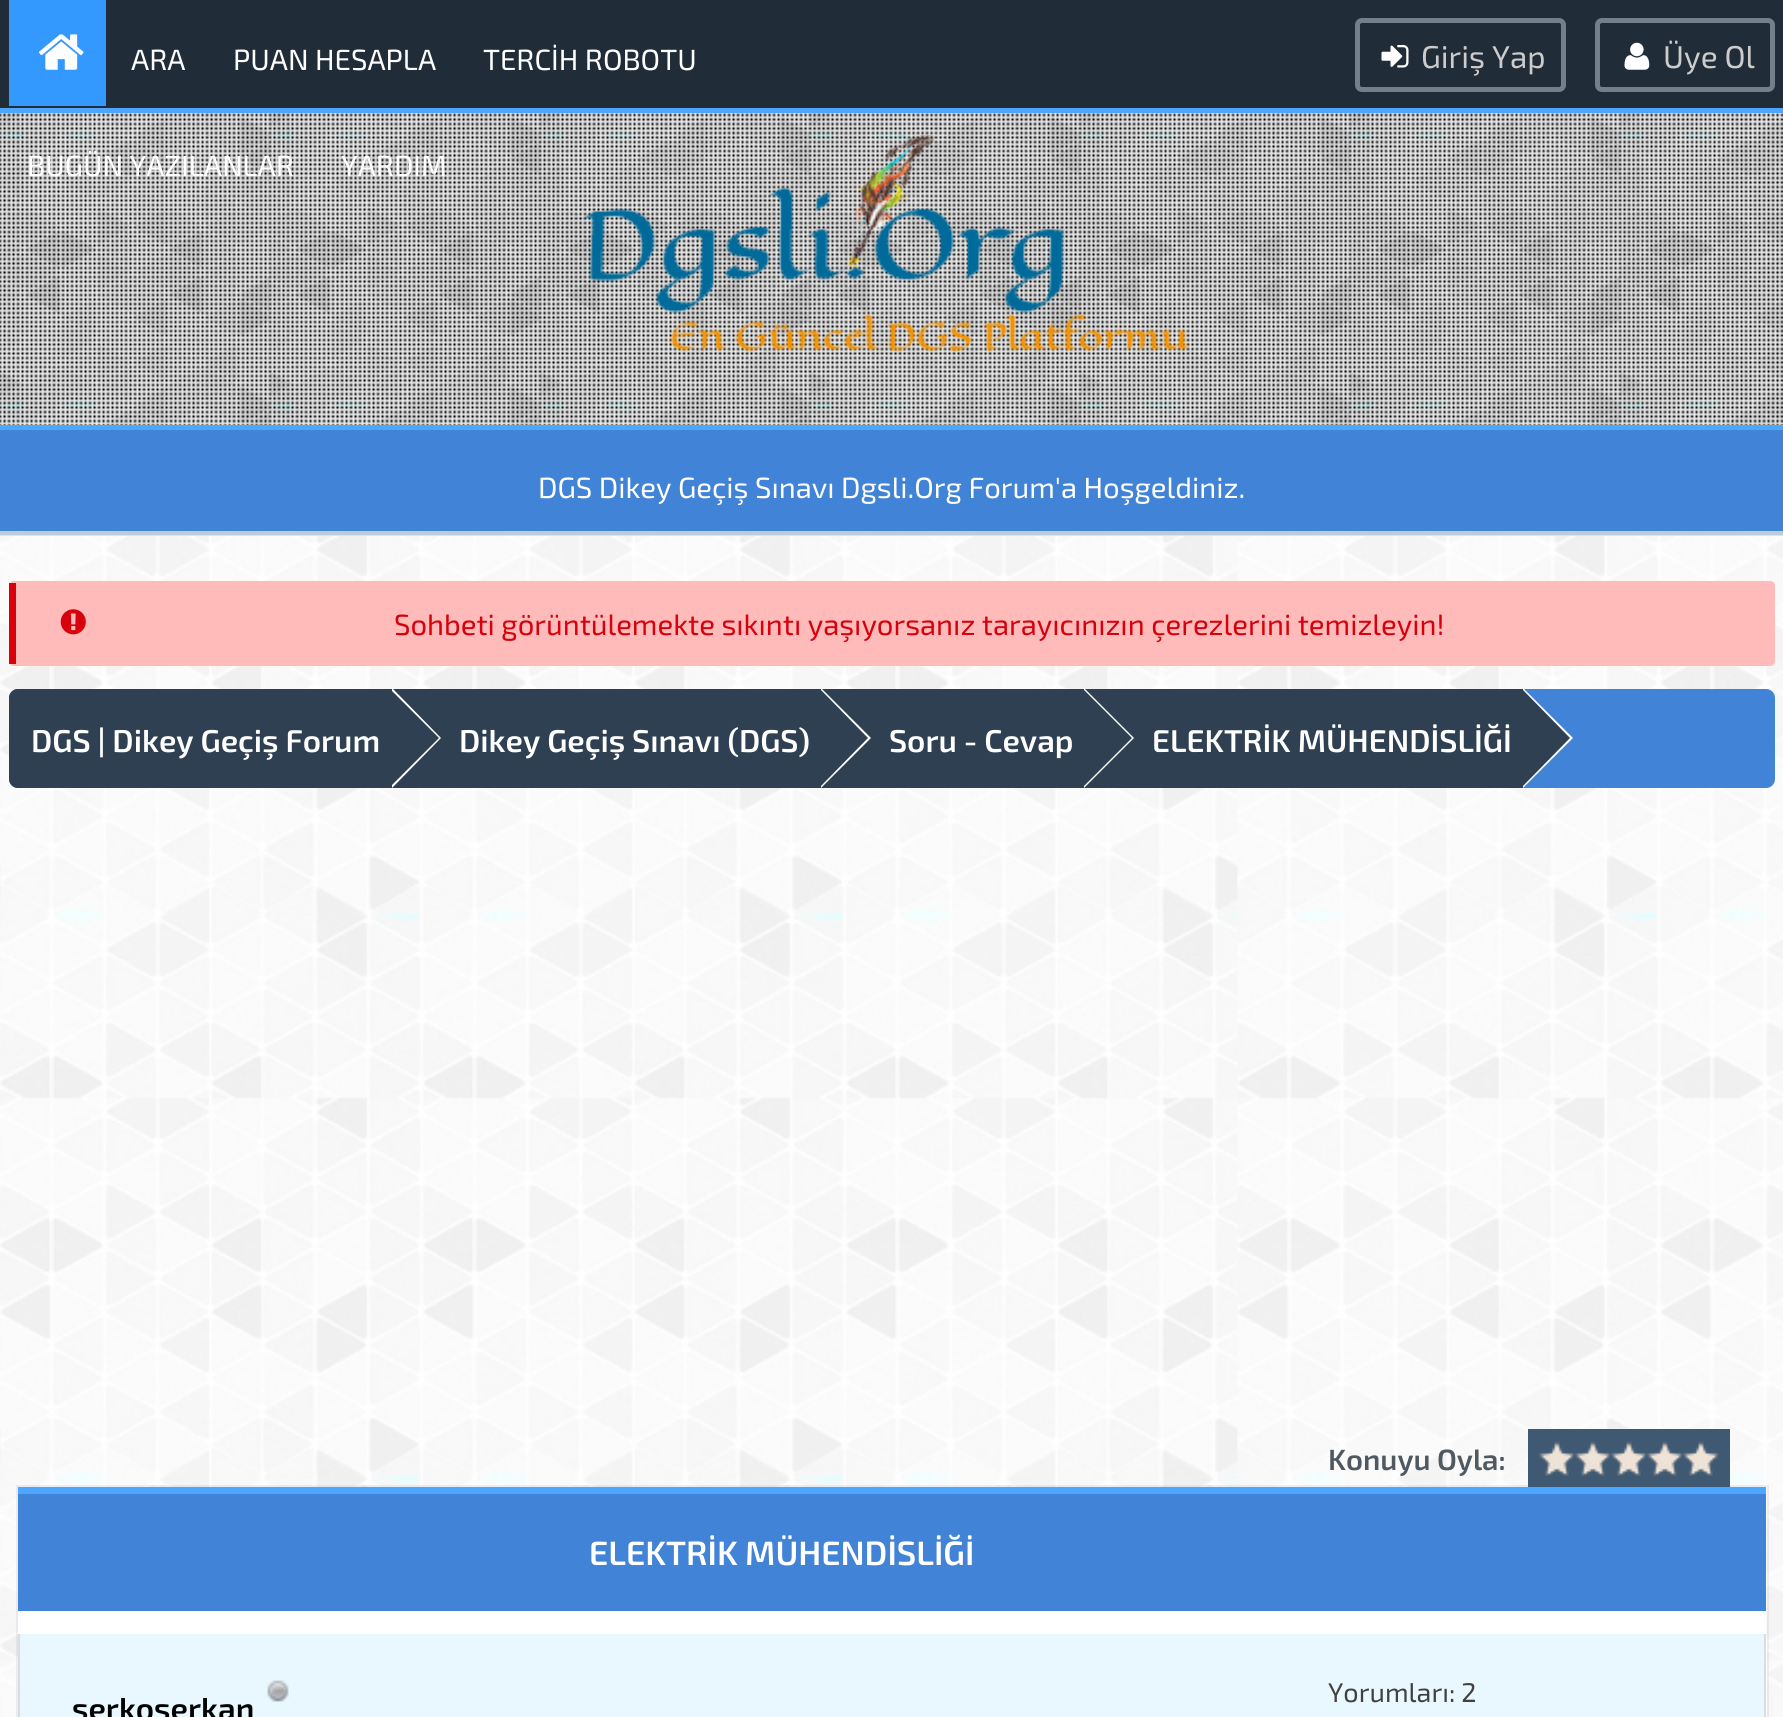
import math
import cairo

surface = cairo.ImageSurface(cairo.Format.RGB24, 1783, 1717)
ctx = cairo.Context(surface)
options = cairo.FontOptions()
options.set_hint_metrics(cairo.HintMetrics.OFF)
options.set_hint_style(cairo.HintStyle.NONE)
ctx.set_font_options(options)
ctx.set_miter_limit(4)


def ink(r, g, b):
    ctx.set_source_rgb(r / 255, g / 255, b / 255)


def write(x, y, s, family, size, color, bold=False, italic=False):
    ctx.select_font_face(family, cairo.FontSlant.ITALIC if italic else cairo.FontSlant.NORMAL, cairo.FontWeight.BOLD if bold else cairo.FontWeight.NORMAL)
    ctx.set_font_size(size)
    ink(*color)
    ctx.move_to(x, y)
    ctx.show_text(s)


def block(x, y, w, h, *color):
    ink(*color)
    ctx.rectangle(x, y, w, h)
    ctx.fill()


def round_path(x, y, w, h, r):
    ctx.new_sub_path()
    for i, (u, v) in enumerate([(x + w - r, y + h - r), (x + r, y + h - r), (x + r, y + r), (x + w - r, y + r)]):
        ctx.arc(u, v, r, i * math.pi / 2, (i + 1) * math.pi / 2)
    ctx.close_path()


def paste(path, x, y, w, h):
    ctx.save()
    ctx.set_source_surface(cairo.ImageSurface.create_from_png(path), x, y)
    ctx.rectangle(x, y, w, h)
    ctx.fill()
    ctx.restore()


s1 = dict(family="Exo 2", size=29.25, color=(255, 255, 255))
s2 = dict(family="Exo 2", size=31.5, color=(204, 204, 204))
s3 = dict(family="Exo 2", size=29.25, color=(216, 0, 12))
s4 = dict(family="Exo 2 SemiBold", size=31.5, color=(255, 255, 255))
s5 = dict(family="Exo 2 SemiBold", size=29.25, color=(80, 89, 98))
s6 = dict(family="Exo 2 SemiBold", size=33.75, color=(255, 255, 255))
s7 = dict(family="Exo 2", size=27, color=(65, 65, 65))
s8 = dict(family="Exo 2 SemiBold", size=31.5, color=(0, 0, 0))

ink(255, 255, 255)
ctx.paint()
block(0, 0, 1783, 108, 32, 44, 56)
block(0, 108, 1783, 5, 77, 166, 255)
block(9, 0, 97, 106, 51, 153, 255)
paste("pic1.png", 39, 34, 45, 36)
write(131, 70, "ARA", **s1)
write(233, 70, "PUAN HESAPLA", **s1)
write(483, 70, "TERCİH ROBOTU", **s1)
paste("pic4.png", 0, 113, 1783, 312)
paste("pic5.png", 0, 113, 1783, 312)
write(27, 176, "BUGÜN YAZILANLAR", **s1)
write(341, 176, "YARDIM", **s1)
round_path(1357.5, 20.5, 206, 69, 4.5)
ink(115, 128, 140)
ctx.set_line_width(5)
ctx.stroke()
paste("pic2.png", 1381, 45, 28, 23)
write(1421, 68, "Giriş Yap", **s2)
round_path(1597.5, 20.5, 175, 69, 4.5)
ink(115, 128, 140)
ctx.stroke()
paste("pic3.png", 1624, 42, 26, 28)
write(1663, 68, "Üye Ol", **s2)
paste("pic6.png", 582, 135, 609, 217)
block(0, 425, 1783, 5, 77, 166, 255)
block(0, 531, 1783, 5, 190, 204, 218)
block(0, 430, 1783, 101, 65, 131, 215)
write(538, 498, "DGS Dikey Geçiş Sınavı Dgsli.Org Forum'a Hoşgeldiniz.", **s1)
paste("pic7.png", 0, 535, 1783, 1182)
ink(255, 186, 186)
round_path(9, 581, 1766, 85, 5)
ctx.fill()
block(9, 583, 7, 81, 216, 0, 12)
paste("pic8.png", 60, 609, 26, 26)
write(394, 635, "Sohbeti görüntülemekte sıkıntı yaşıyorsanız tarayıcınızın çerezlerini temizleyin!", **s3)
ink(65, 131, 215)
round_path(9, 689, 1766, 99, 9)
ctx.fill()
ink(46, 64, 82)
ctx.new_path()
ctx.move_to(18, 689)
ctx.line_to(392, 689)
ctx.line_to(392, 788)
ctx.line_to(18, 788)
ctx.curve_to(13, 788, 9, 784, 9, 779)
ctx.line_to(9, 698)
ctx.curve_to(9, 693, 13, 689, 18, 689)
ctx.close_path()
ctx.fill()
write(31, 752, "DGS | Dikey Geçiş Forum", **s4)
block(392, 689, 1131, 99, 46, 64, 82)
ink(255, 255, 255)
ctx.new_path()
ctx.move_to(392, 788)
ctx.line_to(441, 738)
ctx.line_to(393, 689)
ctx.line_to(392, 689)
ctx.close_path()
ctx.fill()
ink(46, 64, 82)
ctx.new_path()
ctx.move_to(390, 689)
ctx.line_to(439, 738)
ctx.line_to(389, 788)
ctx.line_to(387, 788)
ctx.line_to(387, 689)
ctx.close_path()
ctx.fill()
write(459, 752, "Dikey Geçiş Sınavı (DGS)", **s4)
ctx.new_path()
ctx.move_to(821, 788)
ctx.line_to(871, 738)
ctx.line_to(822, 689)
ctx.line_to(821, 689)
ctx.close_path()
ctx.fill()
ink(46, 64, 82)
ctx.new_path()
ctx.move_to(820, 689)
ctx.line_to(868, 738)
ctx.line_to(819, 788)
ctx.line_to(817, 788)
ctx.line_to(817, 689)
ctx.close_path()
ctx.fill()
write(889, 752, "Soru - Cevap", **s4)
ctx.new_path()
ctx.move_to(1084, 788)
ctx.line_to(1134, 738)
ctx.line_to(1085, 689)
ctx.line_to(1084, 689)
ctx.close_path()
ctx.fill()
ink(46, 64, 82)
ctx.new_path()
ctx.move_to(1083, 689)
ctx.line_to(1132, 738)
ctx.line_to(1082, 788)
ctx.line_to(1080, 788)
ctx.line_to(1080, 689)
ctx.close_path()
ctx.fill()
write(1152, 752, "ELEKTRİK MÜHENDİSLİĞİ", **s4)
ctx.new_path()
ctx.move_to(1523, 788)
ctx.line_to(1573, 738)
ctx.line_to(1524, 689)
ctx.line_to(1523, 689)
ctx.close_path()
ctx.fill()
ink(46, 64, 82)
ctx.new_path()
ctx.move_to(1522, 689)
ctx.line_to(1570, 738)
ctx.line_to(1521, 788)
ctx.line_to(1519, 788)
ctx.line_to(1519, 689)
ctx.close_path()
ctx.fill()
write(1328, 1470, "Konuyu Oyla:", **s5)
ctx.rectangle(17, 1486, 1751, 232)
ctx.set_source_rgba(0.639, 0.714, 0.788, 0.21)
ctx.set_line_width(2)
ctx.stroke()
block(1528, 1429, 202, 58, 64, 89, 114)
paste("pic9.png", 1539, 1441, 180, 35)
block(18, 1611, 1748, 23, 255, 255, 255)
block(18, 1494, 1748, 117, 65, 131, 215)
block(18, 1487, 1748, 7, 77, 166, 255)
write(589, 1565, "ELEKTRİK MÜHENDİSLİĞİ", **s6)
block(1764, 1634, 2, 83, 221, 221, 221)
block(18, 1634, 2, 83, 221, 221, 221)
block(20, 1634, 1744, 83, 233, 248, 255)
write(1328, 1702, "Yorumları: 2", **s7)
paste("pic10.png", 267, 1680, 22, 22)
write(72, 1720, "serkoserkan", **s8)
surface.write_to_png("screenshot.png")
